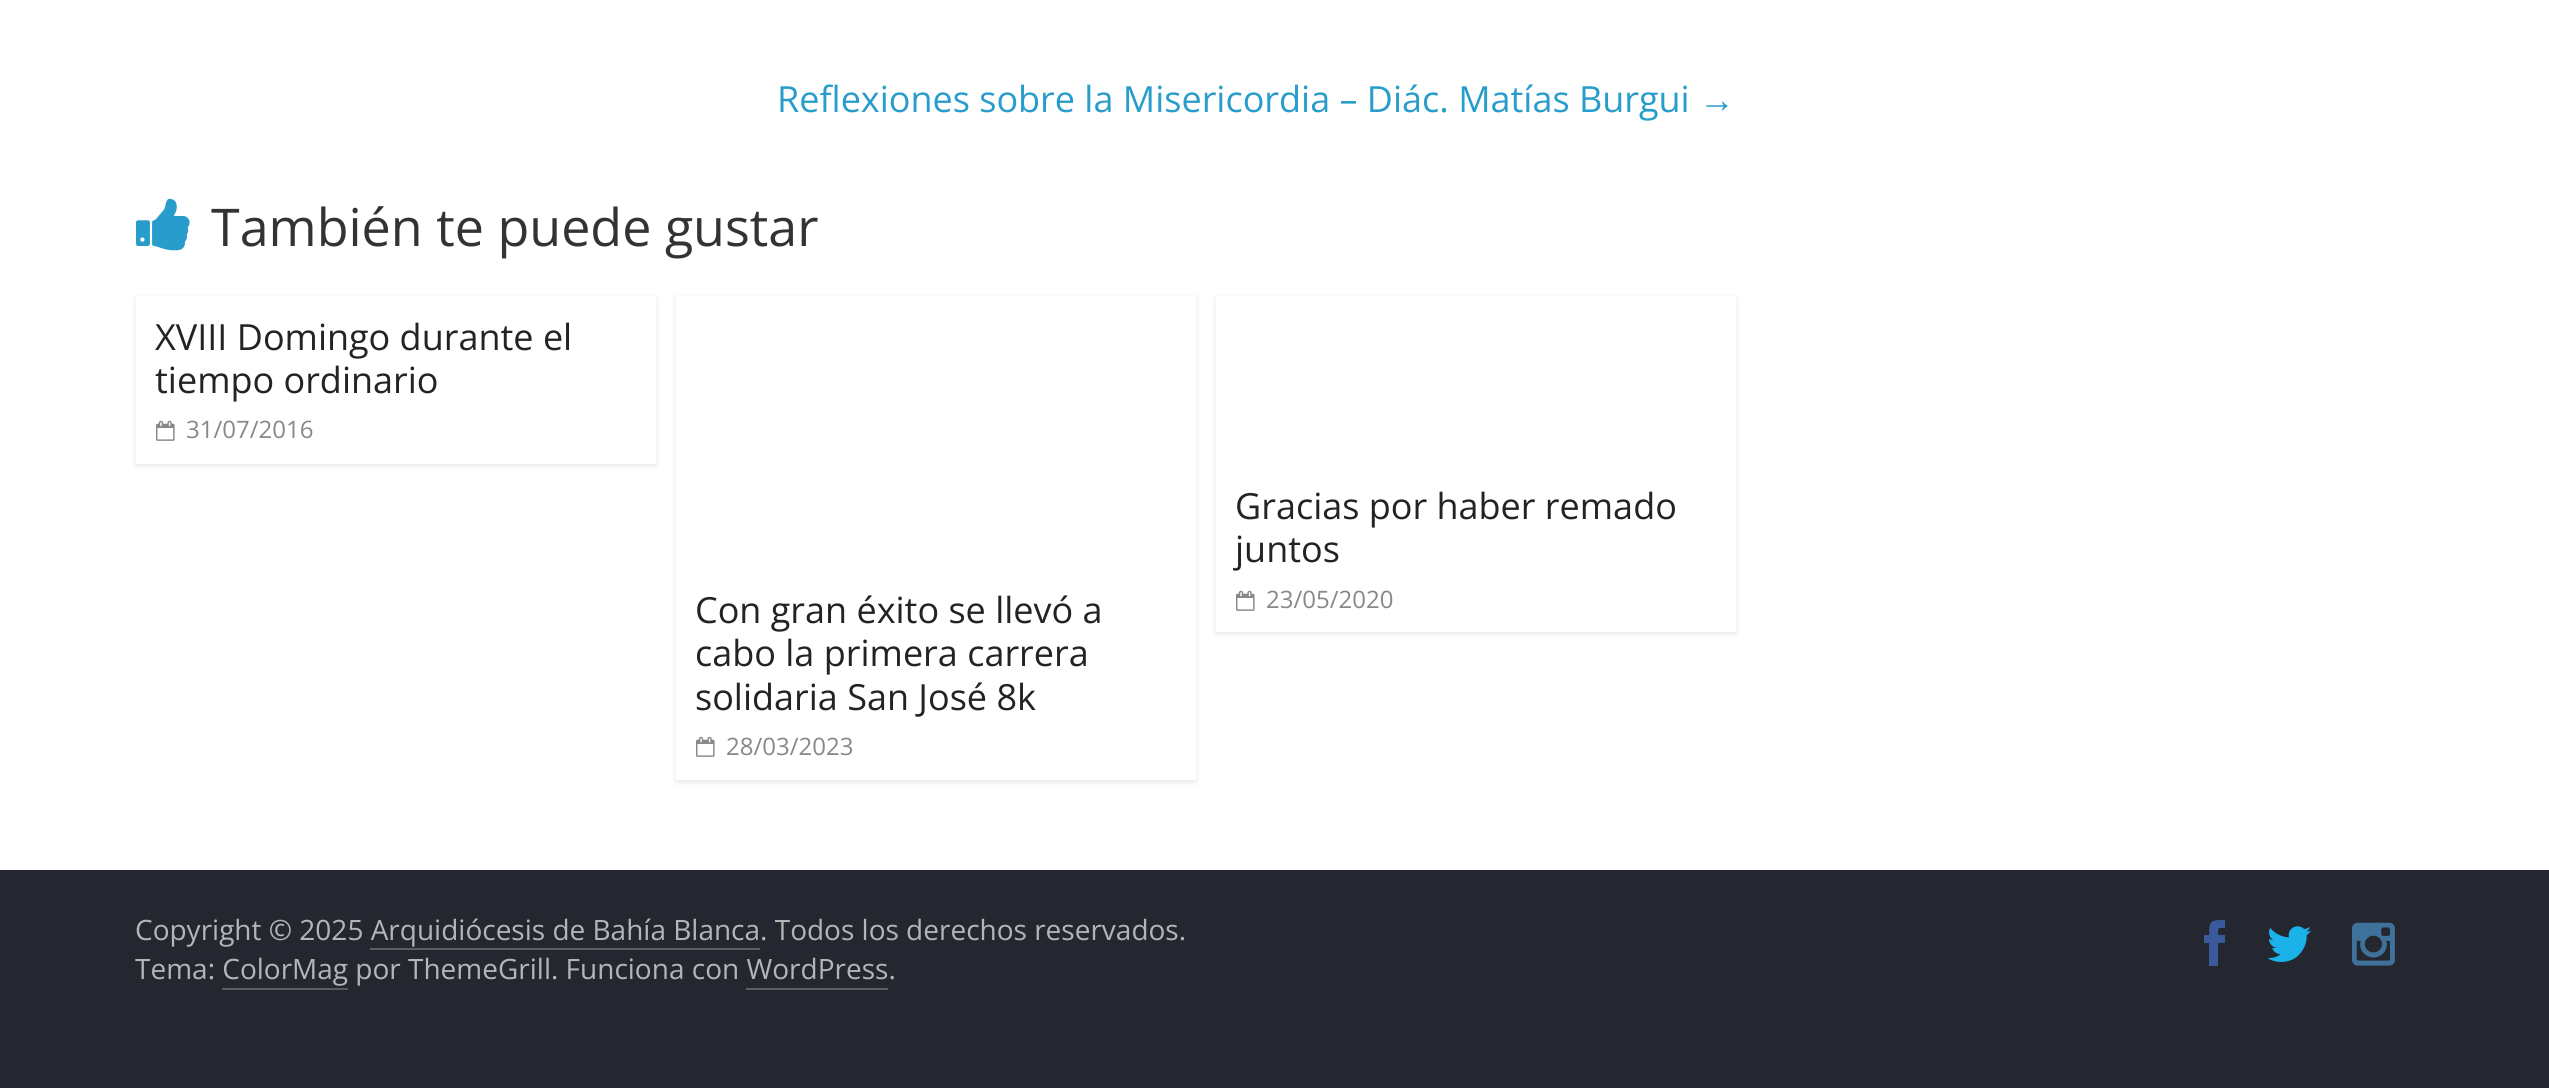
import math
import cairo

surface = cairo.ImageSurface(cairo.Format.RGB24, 2549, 1088)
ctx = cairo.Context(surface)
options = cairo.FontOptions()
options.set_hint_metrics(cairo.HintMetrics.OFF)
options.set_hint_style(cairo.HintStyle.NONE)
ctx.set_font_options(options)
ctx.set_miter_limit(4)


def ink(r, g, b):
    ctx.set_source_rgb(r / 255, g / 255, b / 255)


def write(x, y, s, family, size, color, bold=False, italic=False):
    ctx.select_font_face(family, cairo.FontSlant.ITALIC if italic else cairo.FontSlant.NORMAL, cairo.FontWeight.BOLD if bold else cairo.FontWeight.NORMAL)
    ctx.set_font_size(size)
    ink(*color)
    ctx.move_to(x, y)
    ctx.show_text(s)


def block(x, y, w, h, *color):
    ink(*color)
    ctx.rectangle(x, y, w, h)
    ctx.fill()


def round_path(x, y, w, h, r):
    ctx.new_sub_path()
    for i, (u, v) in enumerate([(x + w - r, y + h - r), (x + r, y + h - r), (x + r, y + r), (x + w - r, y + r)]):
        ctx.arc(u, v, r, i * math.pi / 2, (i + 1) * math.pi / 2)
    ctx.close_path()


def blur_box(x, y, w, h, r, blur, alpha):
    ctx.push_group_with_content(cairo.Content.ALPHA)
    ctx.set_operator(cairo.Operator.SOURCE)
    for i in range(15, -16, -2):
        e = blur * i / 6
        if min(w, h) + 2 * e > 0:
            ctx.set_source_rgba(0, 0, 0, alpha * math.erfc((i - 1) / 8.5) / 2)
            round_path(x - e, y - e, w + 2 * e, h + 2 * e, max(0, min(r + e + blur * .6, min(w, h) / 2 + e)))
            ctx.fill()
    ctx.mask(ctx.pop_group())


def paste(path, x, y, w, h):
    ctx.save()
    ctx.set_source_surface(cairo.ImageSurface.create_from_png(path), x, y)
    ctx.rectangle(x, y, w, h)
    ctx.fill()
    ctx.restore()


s1 = dict(family="Open Sans", size=36, color=(40, 157, 204))
s2 = dict(family="Liberation Serif", size=36, color=(40, 157, 204))
s3 = dict(family="Open Sans", size=52, color=(51, 51, 51))
s4 = dict(family="Open Sans", size=36, color=(35, 35, 35))
s5 = dict(family="Open Sans", size=24, color=(136, 136, 136))
s6 = dict(family="Open Sans", size=28, color=(177, 182, 182))

ink(255, 255, 255)
ctx.paint()
write(777, 112, "Reflexiones sobre la Misericordia – Diác. Matías Burgui", **s1)
write(1699, 112, "→", **s2)
paste("pic1.png", 136, 198, 54, 53)
write(211, 246, "También te puede gustar", **s3)
ctx.save()
ctx.set_fill_rule(cairo.FillRule.EVEN_ODD)
ctx.new_path()
ctx.move_to(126, 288)
ctx.line_to(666, 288)
ctx.line_to(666, 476)
ctx.line_to(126, 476)
ctx.close_path()
ctx.move_to(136, 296)
ctx.line_to(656, 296)
ctx.line_to(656, 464)
ctx.line_to(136, 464)
ctx.close_path()
ctx.clip()
ink(0, 0, 0)
blur_box(136, 298, 520, 168, 0, 3, 0.1)
ctx.restore()
write(155, 350, "XVIII Domingo durante el", **s4)
write(155, 393, "tiempo ordinario", **s4)
paste("pic2.png", 156, 420, 19, 21)
write(186, 438, "31/07/2016", **s5)
ctx.save()
ctx.set_fill_rule(cairo.FillRule.EVEN_ODD)
ctx.new_path()
ctx.move_to(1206, 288)
ctx.line_to(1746, 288)
ctx.line_to(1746, 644)
ctx.line_to(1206, 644)
ctx.close_path()
ctx.move_to(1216, 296)
ctx.line_to(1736, 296)
ctx.line_to(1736, 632)
ctx.line_to(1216, 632)
ctx.close_path()
ctx.clip()
ink(0, 0, 0)
blur_box(1216, 298, 520, 336, 0, 3, 0.1)
ctx.restore()
write(1235, 519, "Gracias por haber remado", **s4)
write(1235, 562, "juntos", **s4)
paste("pic2.png", 1236, 590, 19, 21)
write(1266, 608, "23/05/2020", **s5)
ctx.save()
ctx.set_fill_rule(cairo.FillRule.EVEN_ODD)
ctx.new_path()
ctx.move_to(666, 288)
ctx.line_to(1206, 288)
ctx.line_to(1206, 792)
ctx.line_to(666, 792)
ctx.close_path()
ctx.move_to(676, 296)
ctx.line_to(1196, 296)
ctx.line_to(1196, 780)
ctx.line_to(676, 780)
ctx.close_path()
ctx.clip()
ink(0, 0, 0)
blur_box(676, 298, 520, 484, 0, 3, 0.1)
ctx.restore()
write(695, 623, "Con gran éxito se llevó a", **s4)
write(695, 666, "cabo la primera carrera", **s4)
write(695, 710, "solidaria San José 8k", **s4)
paste("pic2.png", 696, 736, 19, 21)
write(726, 755, "28/03/2023", **s5)
block(0, 870, 2549, 218, 37, 39, 48)
write(135, 940, "Copyright © 2025 Arquidiócesis de Bahía Blanca. Todos los derechos reservados.", **s6)
block(370, 948, 390, 2, 90, 93, 98)
write(135, 979, "Tema: ColorMag por ThemeGrill. Funciona con WordPress.", **s6)
block(222, 988, 126, 2, 90, 93, 98)
block(746, 988, 142, 2, 90, 93, 98)
ink(59, 90, 155)
ctx.new_path()
ctx.move_to(2218, 935)
ctx.line_to(2225, 935)
ctx.line_to(2225, 943)
ctx.line_to(2218, 943)
ctx.line_to(2218, 966)
ctx.line_to(2209, 966)
ctx.line_to(2209, 943)
ctx.line_to(2204, 943)
ctx.line_to(2204, 935)
ctx.line_to(2209, 935)
ctx.curve_to(2209, 920, 2211, 920, 2225, 920)
ctx.line_to(2225, 928)
ctx.curve_to(2218, 928, 2218, 927, 2218, 935)
ctx.close_path()
ctx.fill()
paste("pic3.png", 2267, 926, 44, 36)
paste("pic4.png", 2352, 922, 43, 44)
surface.write_to_png("screenshot.png")
